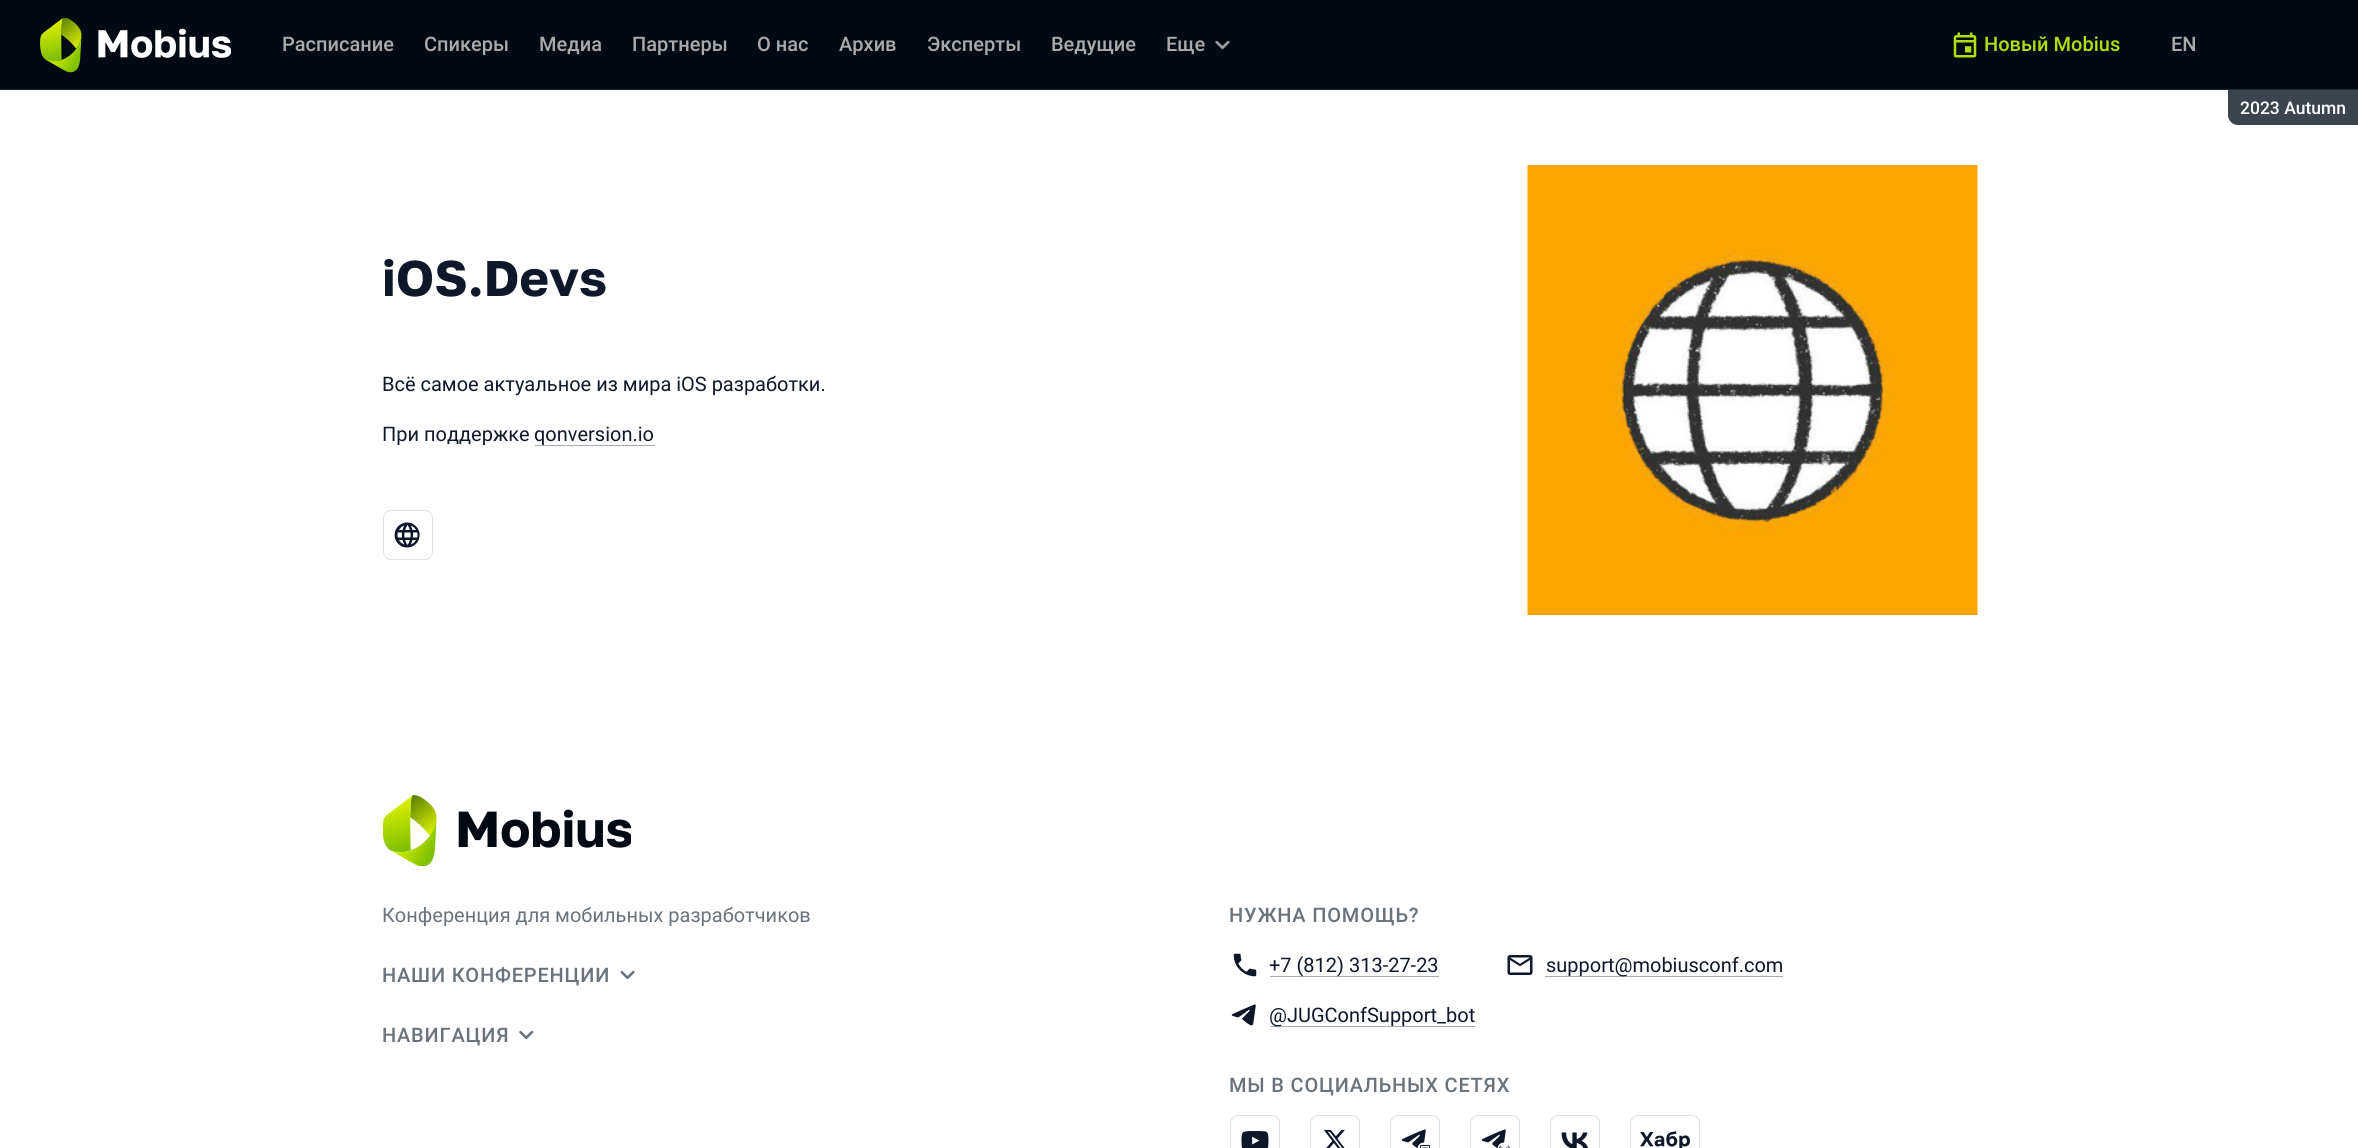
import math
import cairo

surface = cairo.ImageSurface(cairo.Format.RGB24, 2358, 1148)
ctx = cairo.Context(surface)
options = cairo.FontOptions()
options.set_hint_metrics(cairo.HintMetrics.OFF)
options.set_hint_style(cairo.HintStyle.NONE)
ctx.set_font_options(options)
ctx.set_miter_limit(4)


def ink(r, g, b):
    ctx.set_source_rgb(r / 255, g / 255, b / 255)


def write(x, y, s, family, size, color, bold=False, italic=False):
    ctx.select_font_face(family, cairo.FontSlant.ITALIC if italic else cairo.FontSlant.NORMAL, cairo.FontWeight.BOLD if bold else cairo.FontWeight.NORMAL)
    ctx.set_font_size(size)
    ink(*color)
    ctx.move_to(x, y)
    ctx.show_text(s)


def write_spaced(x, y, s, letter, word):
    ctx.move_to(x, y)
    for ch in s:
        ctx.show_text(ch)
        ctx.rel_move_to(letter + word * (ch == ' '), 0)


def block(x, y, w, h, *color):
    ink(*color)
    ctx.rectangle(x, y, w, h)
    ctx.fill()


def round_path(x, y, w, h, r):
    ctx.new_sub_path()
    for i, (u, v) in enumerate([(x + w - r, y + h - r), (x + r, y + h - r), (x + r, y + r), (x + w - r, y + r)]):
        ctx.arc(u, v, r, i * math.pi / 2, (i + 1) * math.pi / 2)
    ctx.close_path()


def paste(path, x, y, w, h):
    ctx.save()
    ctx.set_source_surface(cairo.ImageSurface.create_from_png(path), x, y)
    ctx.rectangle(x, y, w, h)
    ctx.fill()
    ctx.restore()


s1 = dict(family="Roboto Medium", size=20, color=(170, 170, 170))
s2 = dict(family="Roboto Medium", size=20, color=(174, 224, 11))
s3 = dict(family="Roboto Medium", size=17.5, color=(255, 255, 255))
s4 = dict(family="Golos", size=50, color=(15, 23, 42), bold=True)
s5 = dict(family="Roboto", size=20, color=(15, 23, 42))
s6 = dict(family="Roboto", size=20, color=(106, 115, 124))

ink(255, 255, 255)
ctx.paint()
block(0, 0, 2358, 89, 1, 10, 18)
paste("pic1.png", 40, 18, 191, 55)
write(282, 51, "Расписание", **s1)
write(424, 51, "Спикеры", **s1)
write(539, 51, "Медиа", **s1)
write(632, 51, "Партнеры", **s1)
write(757, 51, "О нас", **s1)
write(839, 51, "Архив", **s1)
write(927, 51, "Эксперты", **s1)
write(1051, 51, "Ведущие", **s1)
write(1166, 51, "Еще", **s1)
paste("pic2.png", 1215, 40, 15, 10)
paste("pic3.png", 1953, 32, 24, 26)
write(1984, 51, "Новый Mobius", **s2)
ink(60, 69, 77)
ctx.new_path()
ctx.move_to(2228, 90)
ctx.line_to(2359, 90)
ctx.line_to(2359, 125)
ctx.line_to(2238, 125)
ctx.curve_to(2232.5, 125, 2228, 120.5, 2228, 115)
ctx.close_path()
ctx.fill()
write(2240, 114, "2023 Autumn", **s3)
write(2171, 51, "EN", **s1)
block(0, 89, 2358, 1, 34, 40, 45)
write(382, 296, "iOS.Devs", **s4)
write(382, 391, "Всё самое актуальное из мира iOS разработки.", **s5)
write(382, 441, "При поддержке", **s5)
block(535, 445, 120, 1, 169, 171, 178)
write(534, 441, "qonversion.io", **s5)
round_path(383.5, 510.5, 49, 49, 7.5)
ink(224, 224, 224)
ctx.set_line_width(1)
ctx.stroke()
paste("pic4.png", 394, 522, 26, 26)
paste("pic5.png", 1527, 165, 451, 450)
paste("pic6.png", 383, 795, 248, 71)
write(382, 922, "Конференция для мобильных разработчиков", **s6)
ctx.select_font_face("Roboto Medium")
write_spaced(382, 982, "НАШИ КОНФЕРЕНЦИИ", 0.8, 0)
paste("pic7.png", 620, 970, 15, 10)
write_spaced(382, 1042, "НАВИГАЦИЯ", 0.8, 0)
paste("pic8.png", 519, 1030, 15, 10)
write_spaced(1229, 922, "НУЖНА ПОМОЩЬ?", 0.8, 0)
paste("pic9.png", 1233, 953, 24, 24)
block(1270, 976, 169, 1, 169, 171, 178)
write(1269, 972, "+7 (812) 313-27-23", **s5)
paste("pic10.png", 1507, 955, 26, 20)
block(1545, 976, 238, 1, 169, 171, 178)
write(1546, 972, "support@mobiusconf.com", **s5)
paste("pic11.png", 1231, 1004, 25, 22)
block(1270, 1026, 205, 1, 169, 171, 178)
write(1269, 1022, "@JUGConfSupport_bot", **s5)
ctx.select_font_face("Roboto Medium")
ink(106, 115, 124)
write_spaced(1229, 1092, "МЫ В СОЦИАЛЬНЫХ СЕТЯХ", 0.8, 0)
round_path(1230.5, 1115.5, 49, 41, 7.5)
ink(224, 224, 224)
ctx.stroke()
paste("pic12.png", 1241, 1131, 28, 17)
round_path(1310.5, 1115.5, 49, 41, 7.5)
ctx.stroke()
paste("pic13.png", 1324, 1130, 21, 18)
round_path(1390.5, 1115.5, 49, 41, 7.5)
ctx.stroke()
paste("pic14.png", 1401, 1129, 29, 19)
round_path(1470.5, 1115.5, 49, 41, 7.5)
ctx.stroke()
paste("pic15.png", 1481, 1129, 29, 19)
round_path(1550.5, 1115.5, 49, 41, 7.5)
ctx.stroke()
paste("pic16.png", 1561, 1132, 27, 16)
round_path(1630.5, 1115.5, 69, 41, 7.5)
ctx.stroke()
paste("pic17.png", 1640, 1131, 50, 17)
surface.write_to_png("screenshot.png")
